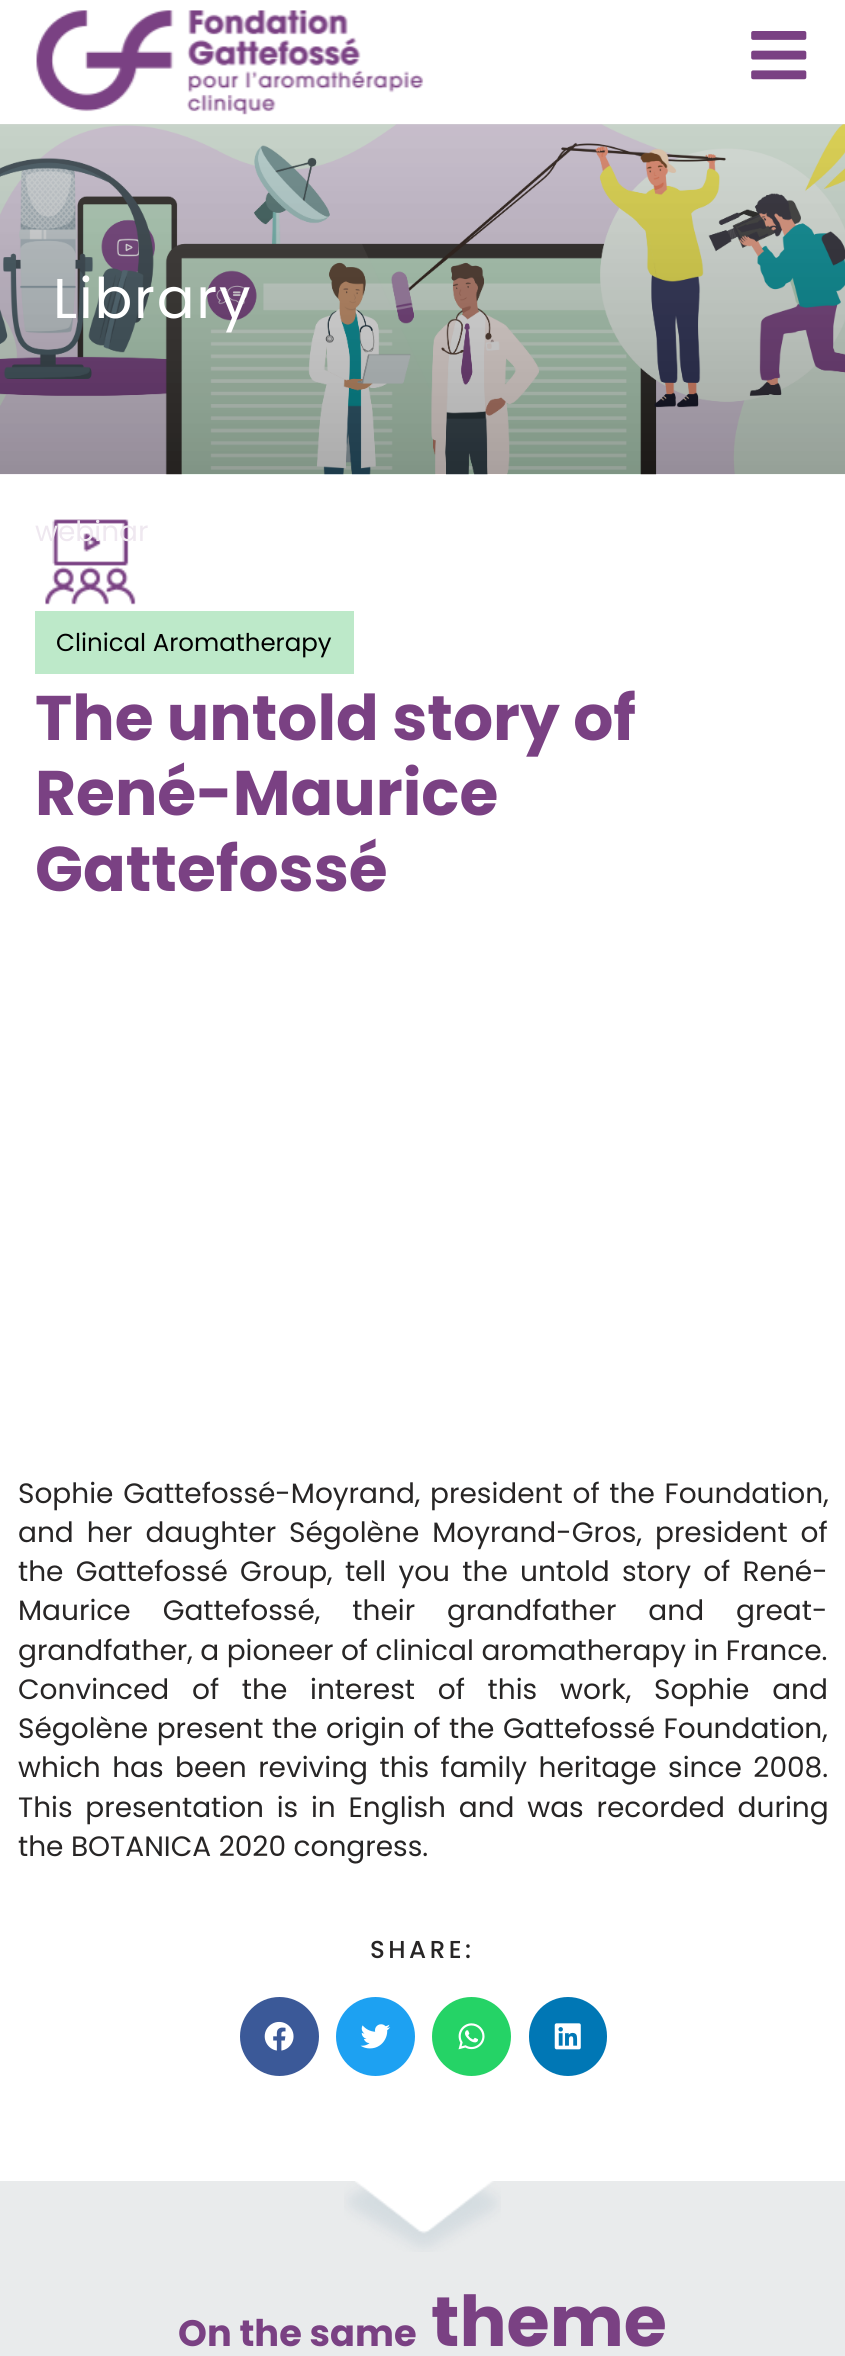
import math
import cairo

surface = cairo.ImageSurface(cairo.Format.RGB24, 845, 2356)
ctx = cairo.Context(surface)
options = cairo.FontOptions()
options.set_hint_metrics(cairo.HintMetrics.OFF)
options.set_hint_style(cairo.HintStyle.NONE)
ctx.set_font_options(options)
ctx.set_miter_limit(4)


def ink(r, g, b):
    ctx.set_source_rgb(r / 255, g / 255, b / 255)


def write(x, y, s, family, size, color, bold=False, italic=False):
    ctx.select_font_face(family, cairo.FontSlant.ITALIC if italic else cairo.FontSlant.NORMAL, cairo.FontWeight.BOLD if bold else cairo.FontWeight.NORMAL)
    ctx.set_font_size(size)
    ink(*color)
    ctx.move_to(x, y)
    ctx.show_text(s)


def write_spaced(x, y, s, letter, word):
    ctx.move_to(x, y)
    for ch in s:
        ctx.show_text(ch)
        ctx.rel_move_to(letter + word * (ch == ' '), 0)


def block(x, y, w, h, *color):
    ink(*color)
    ctx.rectangle(x, y, w, h)
    ctx.fill()


def round_path(x, y, w, h, r):
    ctx.new_sub_path()
    for i, (u, v) in enumerate([(x + w - r, y + h - r), (x + r, y + h - r), (x + r, y + r), (x + w - r, y + r)]):
        ctx.arc(u, v, r, i * math.pi / 2, (i + 1) * math.pi / 2)
    ctx.close_path()


def paste(path, x, y, w, h):
    ctx.save()
    ctx.set_source_surface(cairo.ImageSurface.create_from_png(path), x, y)
    ctx.rectangle(x, y, w, h)
    ctx.fill()
    ctx.restore()


s1 = dict(family="Poppins", size=28, color=(239, 232, 240))
s2 = dict(family="Poppins", size=24.5, color=(0, 0, 0))
s3 = dict(family="Poppins", size=63, color=(122, 65, 131), bold=True)
s4 = dict(family="Poppins", size=28, color=(39, 37, 37))
s5 = dict(family="Poppins", size=36.75, color=(122, 65, 131), bold=True)
s6 = dict(family="Poppins", size=70, color=(122, 65, 131), bold=True)

ink(255, 255, 255)
ctx.paint()
paste("pic1.png", 36, 10, 388, 105)
paste("pic2.png", 751, 31, 56, 49)
paste("pic3.png", 0, 124, 845, 351)
gradient = cairo.LinearGradient(423, 124, 423, 474)
gradient.add_color_stop_rgba(0, 0.471, 0.471, 0.471, 0.23)
gradient.add_color_stop_rgba(1, 0, 0, 0, 0.33)
ctx.set_source(gradient)
ctx.rectangle(0, 124, 845, 350)
ctx.fill()
ctx.select_font_face("Poppins")
ctx.set_font_size(56)
ink(255, 255, 255)
write_spaced(53, 318, "Library", 1.75, 0)
paste("pic4.png", 45, 519, 91, 86)
write(35, 541, "webinar", **s1)
block(35, 611, 319, 63, 189, 233, 201)
write(56, 651, "Clinical Aromatherapy", **s2)
write(35, 740, "The untold story of", **s3)
write(35, 815, "René-Maurice", **s3)
write(35, 891, "Gattefossé", **s3)
ctx.select_font_face("Poppins")
ctx.set_font_size(28)
ink(39, 37, 37)
write_spaced(18, 1503, "Sophie Gattefossé-Moyrand, president of the Foundation,", 0, 2.25)
write_spaced(18, 1542, "and her daughter Ségolène Moyrand-Gros, president of", 0, 5.5)
write_spaced(18, 1581, "the Gattefossé Group, tell you the untold story of René-", 0, 4.75)
write_spaced(18, 1620, "Maurice Gattefossé, their grandfather and great-", 0, 24.5)
write(18, 1660, "grandfather, a pioneer of clinical aromatherapy in France.", **s4)
write_spaced(18, 1699, "Convinced of the interest of this work, Sophie and", 0, 15.25)
write_spaced(18, 1738, "Ségolène present the origin of the Gattefossé Foundation,", 0, 1)
write_spaced(18, 1777, "which has been reviving this family heritage since 2008.", 0, 4)
write_spaced(18, 1817, "This presentation is in English and was recorded during", 0, 5.25)
write(18, 1856, "the BOTANICA 2020 congress.", **s4)
ctx.select_font_face("Poppins Medium")
ctx.set_font_size(24.5)
write_spaced(370, 1958, "SHARE:", 3.5, 0)
ink(59, 89, 152)
ctx.new_path()
ctx.arc(279.5, 2036.5, 39.5, 0, 2 * math.pi)
ctx.fill()
paste("pic5.png", 264, 2021, 30, 30)
ink(29, 161, 242)
ctx.arc(375.5, 2036.5, 39.5, 0, 2 * math.pi)
ctx.fill()
paste("pic6.png", 360, 2024, 31, 25)
ink(37, 211, 102)
ctx.arc(471.5, 2036.5, 39.5, 0, 2 * math.pi)
ctx.fill()
paste("pic7.png", 458, 2023, 27, 27)
ink(0, 119, 181)
round_path(529, 1997, 78, 79, 39)
ctx.fill()
paste("pic8.png", 554, 2023, 27, 27)
block(0, 2181, 845, 175, 233, 235, 236)
paste("pic9.png", 344, 2181, 157, 71)
write(178, 2346, "On the same", **s5)
write(431, 2346, "theme", **s6)
surface.write_to_png("screenshot.png")
